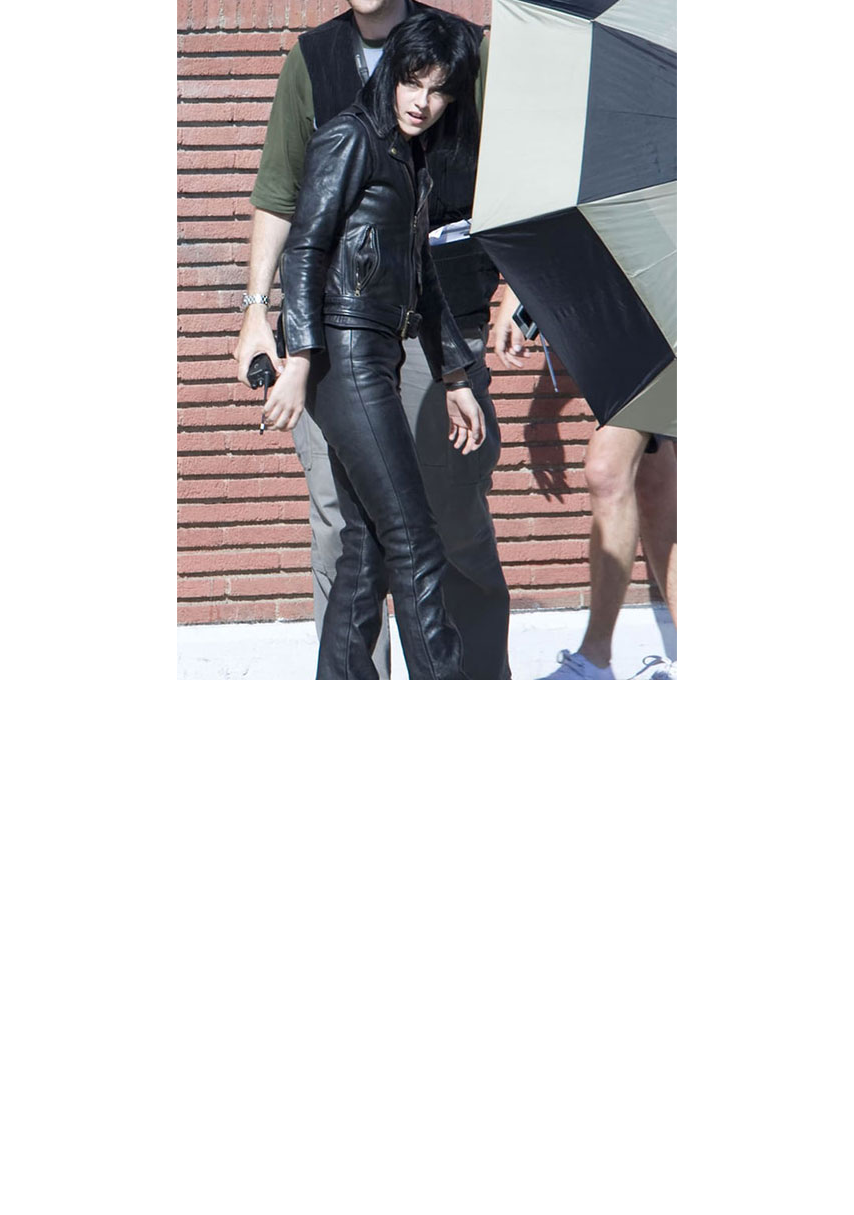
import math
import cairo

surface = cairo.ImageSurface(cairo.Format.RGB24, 854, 1215)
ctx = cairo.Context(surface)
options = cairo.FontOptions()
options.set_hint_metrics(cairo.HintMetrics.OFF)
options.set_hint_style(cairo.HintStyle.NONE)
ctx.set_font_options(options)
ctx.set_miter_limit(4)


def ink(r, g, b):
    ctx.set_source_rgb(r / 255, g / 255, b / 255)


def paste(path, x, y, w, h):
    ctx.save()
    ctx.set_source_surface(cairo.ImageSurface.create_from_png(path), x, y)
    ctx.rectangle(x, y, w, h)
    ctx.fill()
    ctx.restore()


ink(255, 255, 255)
ctx.paint()
paste("pic1.png", 177, 0, 500, 680)
surface.write_to_png("screenshot.png")
